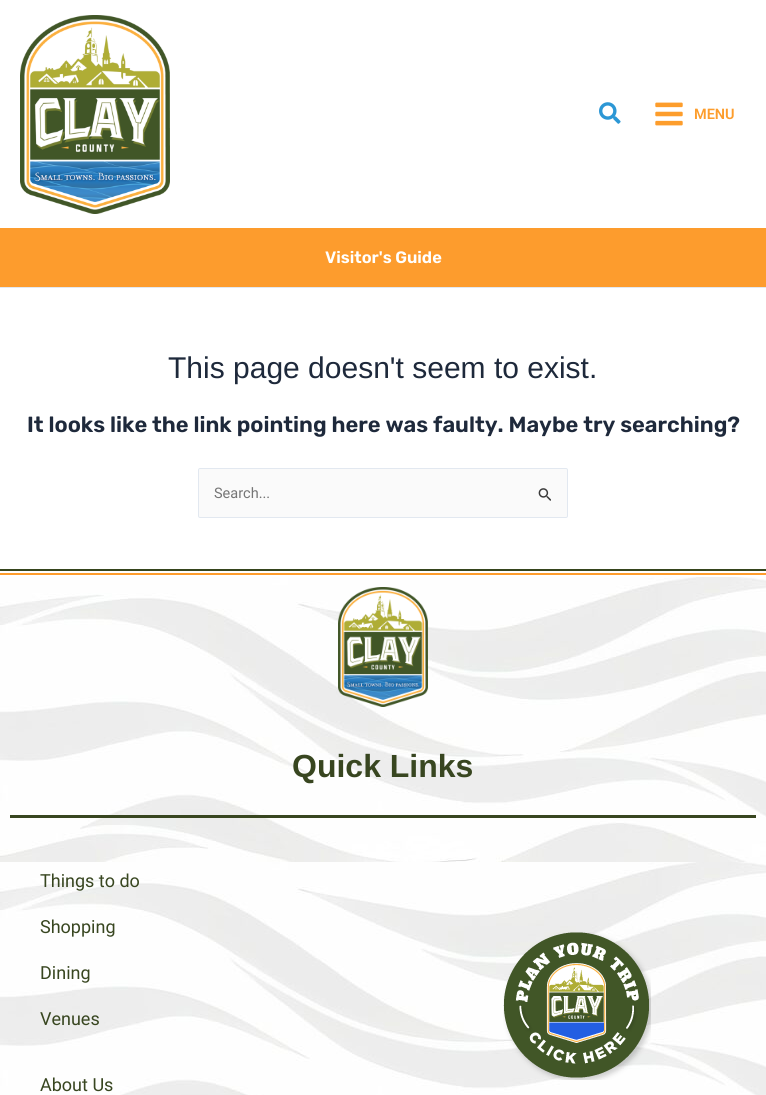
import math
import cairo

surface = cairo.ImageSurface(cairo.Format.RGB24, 766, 1095)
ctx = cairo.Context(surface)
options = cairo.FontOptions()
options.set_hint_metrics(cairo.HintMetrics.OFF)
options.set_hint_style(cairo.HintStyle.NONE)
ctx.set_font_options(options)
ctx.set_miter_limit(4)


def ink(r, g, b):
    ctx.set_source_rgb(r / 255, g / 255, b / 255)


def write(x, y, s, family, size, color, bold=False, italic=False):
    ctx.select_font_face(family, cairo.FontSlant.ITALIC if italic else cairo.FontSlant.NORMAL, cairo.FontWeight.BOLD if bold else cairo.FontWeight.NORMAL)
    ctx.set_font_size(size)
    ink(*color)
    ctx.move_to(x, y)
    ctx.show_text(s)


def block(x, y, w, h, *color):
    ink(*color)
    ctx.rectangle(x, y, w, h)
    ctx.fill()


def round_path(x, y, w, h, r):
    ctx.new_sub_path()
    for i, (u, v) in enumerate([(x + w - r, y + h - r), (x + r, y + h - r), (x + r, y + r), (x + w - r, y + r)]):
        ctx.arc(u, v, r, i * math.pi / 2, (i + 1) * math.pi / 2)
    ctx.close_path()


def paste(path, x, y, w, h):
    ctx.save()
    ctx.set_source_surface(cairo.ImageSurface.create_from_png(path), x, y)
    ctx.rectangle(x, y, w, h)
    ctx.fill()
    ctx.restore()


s1 = dict(family="Roboto SemiBold", size=14.5, color=(253, 157, 44))
s2 = dict(family="Rubik SemiBold", size=16.5, color=(255, 255, 255))
s3 = dict(family="Liberation Sans", size=30, color=(30, 41, 59))
s4 = dict(family="Rubik SemiBold", size=21.9, color=(30, 41, 59))
s5 = dict(family="Roboto", size=14.5, color=(117, 117, 117))
s6 = dict(family="Liberation Sans", size=32, color=(56, 70, 32), bold=True)
s7 = dict(family="Roboto", size=18, color=(56, 70, 32))

ink(255, 255, 255)
ctx.paint()
paste("pic1.png", 20, 15, 150, 199)
paste("pic2.png", 599, 102, 22, 22)
paste("pic3.png", 655, 102, 28, 24)
write(694, 119, "MENU", **s1)
block(0, 228, 766, 59, 253, 156, 45)
block(0, 287, 766, 1, 226, 232, 240)
write(325, 263, "Visitor's Guide", **s2)
write(168, 378, "This page doesn't seem to exist.", **s3)
write(27, 432, "It looks like the link pointing here was faulty. Maybe try searching?", **s4)
ink(250, 250, 250)
round_path(198.5, 468.5, 369, 49, 1.5)
ctx.fill_preserve()
ink(226, 232, 240)
ctx.set_line_width(1)
ctx.stroke()
write(214, 498, "Search...", **s5)
paste("pic4.png", 538, 488, 13, 13)
paste("pic5.png", 0, 577, 766, 518)
block(0, 569, 766, 2, 54, 69, 29)
block(0, 573, 766, 2, 254, 157, 45)
paste("pic6.png", 338, 587, 90, 120)
write(292, 777, "Quick Links", **s6)
block(10, 815, 746, 3, 56, 70, 32)
write(40, 887, "Things to do", **s7)
write(40, 933, "Shopping", **s7)
write(40, 979, "Dining", **s7)
write(40, 1025, "Venues", **s7)
write(40, 1091, "About Us", **s7)
paste("pic7.png", 503, 932, 148, 148)
surface.write_to_png("screenshot.png")
